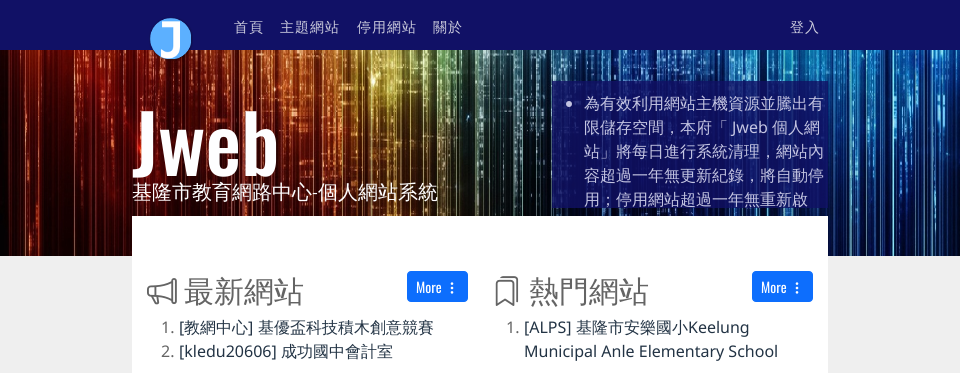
import math
import cairo

surface = cairo.ImageSurface(cairo.Format.RGB24, 960, 373)
ctx = cairo.Context(surface)
options = cairo.FontOptions()
options.set_hint_metrics(cairo.HintMetrics.OFF)
options.set_hint_style(cairo.HintStyle.NONE)
ctx.set_font_options(options)
ctx.set_miter_limit(4)


def ink(r, g, b):
    ctx.set_source_rgb(r / 255, g / 255, b / 255)


def write(x, y, s, family, size, color, bold=False, italic=False):
    ctx.select_font_face(family, cairo.FontSlant.ITALIC if italic else cairo.FontSlant.NORMAL, cairo.FontWeight.BOLD if bold else cairo.FontWeight.NORMAL)
    ctx.set_font_size(size)
    ink(*color)
    ctx.move_to(x, y)
    ctx.show_text(s)


def write_spaced(x, y, s, letter, word):
    ctx.move_to(x, y)
    for ch in s:
        ctx.show_text(ch)
        ctx.rel_move_to(letter + word * (ch == ' '), 0)


def block(x, y, w, h, *color):
    ink(*color)
    ctx.rectangle(x, y, w, h)
    ctx.fill()


def round_path(x, y, w, h, r):
    ctx.new_sub_path()
    for i, (u, v) in enumerate([(x + w - r, y + h - r), (x + r, y + h - r), (x + r, y + r), (x + w - r, y + r)]):
        ctx.arc(u, v, r, i * math.pi / 2, (i + 1) * math.pi / 2)
    ctx.close_path()


def paste(path, x, y, w, h):
    ctx.save()
    ctx.set_source_surface(cairo.ImageSurface.create_from_png(path), x, y)
    ctx.rectangle(x, y, w, h)
    ctx.fill()
    ctx.restore()


s1 = dict(family="Oswald Medium", size=80, color=(254, 254, 255))
s2 = dict(family="WenQuanYi Zen Hei Medium", size=20, color=(254, 254, 255))
s3 = dict(family="Oswald Light", size=20, color=(254, 254, 255))
s4 = dict(family="WenQuanYi Zen Hei Medium", size=16, color=(195, 196, 225))
s5 = dict(family="Noto Sans", size=16, color=(195, 196, 225))
s6 = dict(family="WenQuanYi Zen Hei Medium", size=30, color=(100, 100, 100))
s7 = dict(family="Oswald", size=14, color=(254, 254, 255))
s8 = dict(family="Noto Sans", size=16, color=(100, 100, 100))
s9 = dict(family="Noto Sans", size=16, color=(34, 51, 68))
s10 = dict(family="WenQuanYi Zen Hei Medium", size=16, color=(34, 51, 68))

ink(239, 239, 239)
ctx.paint()
block(0, 0, 960, 50, 17, 17, 102)
paste("pic2.png", 0, 50, 960, 206)
paste("pic1.png", 149, 17, 44, 44)
ctx.select_font_face("WenQuanYi Zen Hei Medium")
ctx.set_font_size(14)
ink(204, 204, 221)
write_spaced(234, 32, "首頁", 1, 0)
write_spaced(280, 32, "主題網站", 1, 0)
write_spaced(357, 32, "停用網站", 1, 0)
write_spaced(433, 32, "關於", 1, 0)
write_spaced(790, 32, "登入", 1, 0)
write(132, 176, "Jweb", **s1)
write(132, 199, "基隆市教育網路中心", **s2)
write(312, 199, "-", **s3)
write(318, 199, "個人網站系統", **s2)
ctx.set_source_rgba(0.067, 0.067, 0.4, 0.8)
ctx.rectangle(552, 81, 276, 127)
ctx.fill()
ctx.set_source_rgba(0.937, 0.937, 1, 0.8)
ctx.arc(569, 104, 3, 0, 2 * math.pi)
ctx.fill()
write(584, 109, "為有效利用網站主機資源並騰出有", **s4)
write(584, 133, "限儲存空間，本府「", **s4)
write(732, 133, "Jweb", **s5)
write(772, 133, "個人網", **s4)
write(584, 157, "站」將每日進行系統清理，網站內", **s4)
write(584, 181, "容超過一年無更新紀錄，將自動停", **s4)
write(584, 205, "用；停用網站超過一年無重新啟", **s4)
block(132, 216, 696, 157, 255, 255, 255)
paste("pic3.png", 147, 278, 30, 27)
write(184, 302, "最新網站", **s6)
ink(13, 110, 253)
round_path(407.5, 271.5, 60, 30, 3.5)
ctx.fill_preserve()
ctx.set_line_width(1)
ctx.stroke()
write(416, 293, "More", **s7)
paste("pic4.png", 450, 282, 4, 12)
write(161, 333, "1.", **s8)
write(179, 333, "[", **s9)
write(184, 333, "教網中心", **s10)
write(248, 333, "]", **s9)
write(258, 333, "基優盃科技積木創意競賽", **s10)
write(161, 357, "2.", **s8)
write(179, 357, "[kledu20606]", **s9)
write(281, 357, "成功國中會計室", **s10)
paste("pic5.png", 495, 276, 24, 30)
write(529, 302, "熱門網站", **s6)
ink(13, 110, 253)
round_path(752.5, 271.5, 60, 30, 3.5)
ctx.fill_preserve()
ctx.stroke()
write(761, 293, "More", **s7)
paste("pic4.png", 795, 282, 4, 12)
write(506, 333, "1.", **s8)
write(524, 333, "[ALPS]", **s9)
write(576, 333, "基隆市安樂國小", **s10)
write(688, 333, "Keelung", **s9)
write(524, 357, "Municipal Anle Elementary School", **s9)
surface.write_to_png("screenshot.png")
